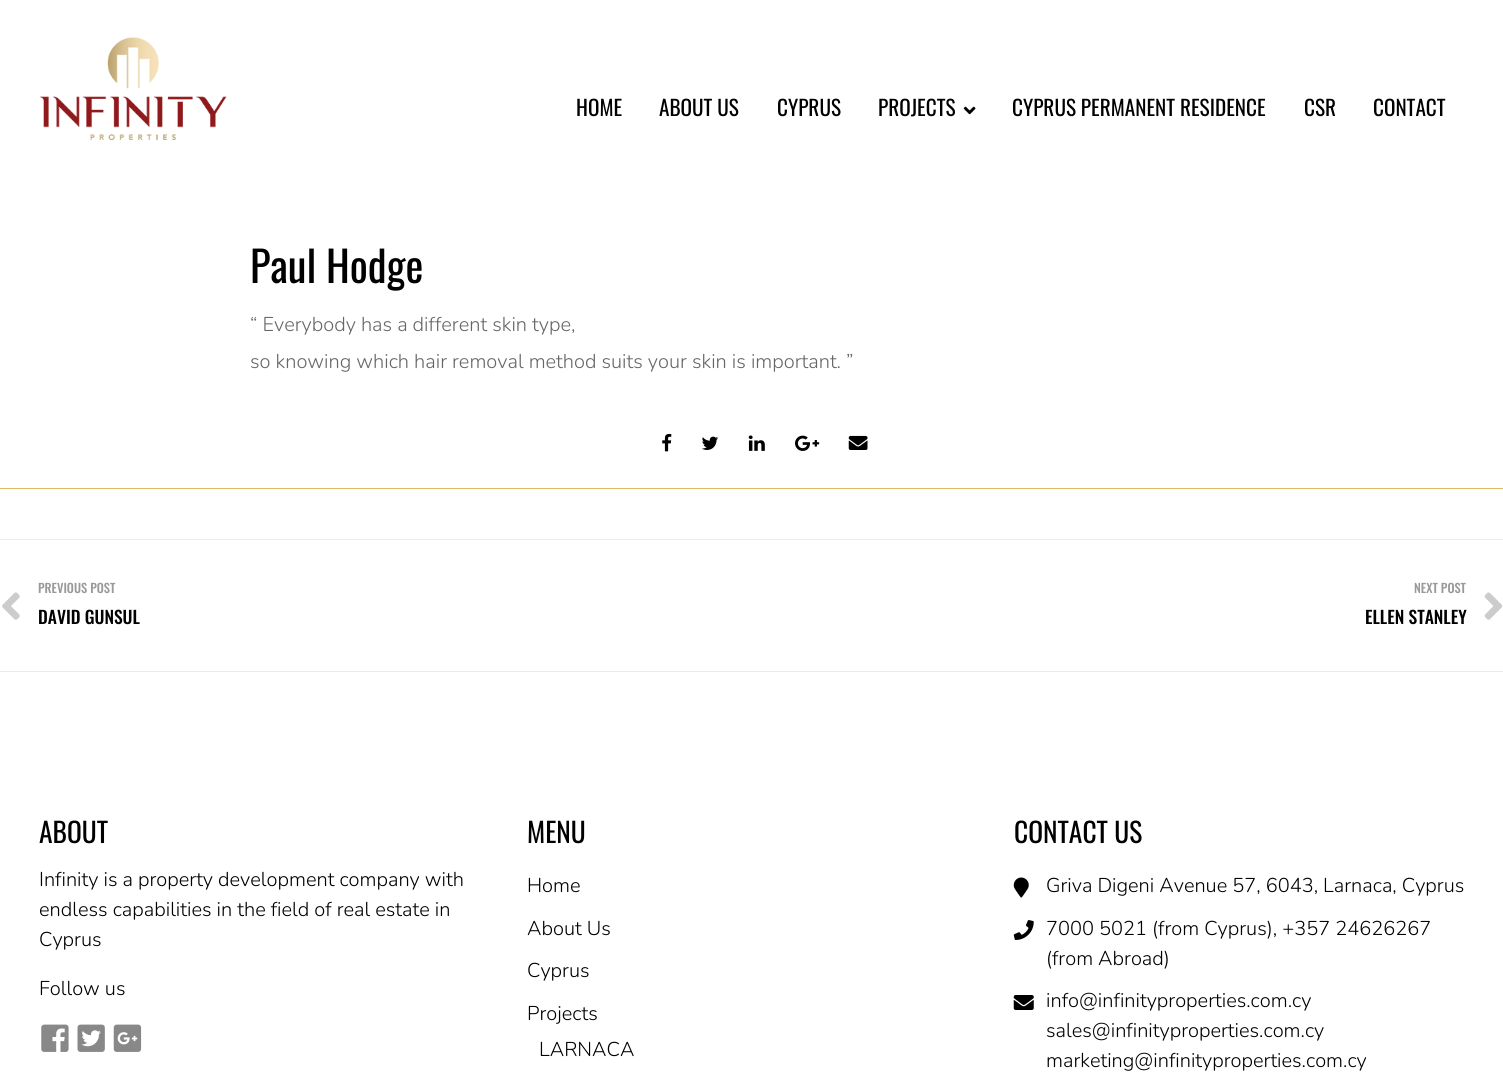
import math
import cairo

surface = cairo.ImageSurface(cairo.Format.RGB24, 1503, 1088)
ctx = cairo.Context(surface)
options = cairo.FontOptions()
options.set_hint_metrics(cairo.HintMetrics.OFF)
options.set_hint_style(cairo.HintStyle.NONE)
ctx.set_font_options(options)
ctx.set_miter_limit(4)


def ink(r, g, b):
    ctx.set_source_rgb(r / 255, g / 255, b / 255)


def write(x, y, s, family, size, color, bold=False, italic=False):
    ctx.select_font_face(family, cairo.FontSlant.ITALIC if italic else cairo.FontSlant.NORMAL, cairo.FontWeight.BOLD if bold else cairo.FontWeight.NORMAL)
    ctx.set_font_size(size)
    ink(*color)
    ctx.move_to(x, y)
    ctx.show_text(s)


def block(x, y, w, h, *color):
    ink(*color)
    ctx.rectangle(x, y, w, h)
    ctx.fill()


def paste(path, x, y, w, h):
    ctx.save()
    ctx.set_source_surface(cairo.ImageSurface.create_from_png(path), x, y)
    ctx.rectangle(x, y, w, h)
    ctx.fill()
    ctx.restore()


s1 = dict(family="Oswald", size=21.25, color=(0, 0, 0))
s2 = dict(family="Oswald", size=42.5, color=(0, 0, 0))
s3 = dict(family="Nunito Light", size=20, color=(102, 102, 102))
s4 = dict(family="Oswald Medium", size=12.5, color=(153, 153, 153))
s5 = dict(family="Oswald Medium", size=17.5, color=(0, 0, 0))
s6 = dict(family="Oswald", size=27.5, color=(0, 0, 0))
s7 = dict(family="Nunito Light", size=20, color=(0, 0, 0))

ink(255, 255, 255)
ctx.paint()
paste("pic1.png", 40, 37, 187, 103)
write(576, 116, "HOME", **s1)
write(659, 116, "ABOUT US", **s1)
write(777, 116, "CYPRUS", **s1)
write(878, 116, "PROJECTS", **s1)
paste("pic2.png", 963, 106, 13, 9)
write(1012, 116, "CYPRUS PERMANENT RESIDENCE", **s1)
write(1304, 116, "CSR", **s1)
write(1373, 116, "CONTACT", **s1)
write(250, 283, "Paul Hodge", **s2)
write(250, 331, "“ Everybody has a different skin type,", **s3)
write(250, 368, "so knowing which hair removal method suits your skin is important. ”", **s3)
block(0, 488, 1503, 1, 224, 186, 102)
paste("pic3.png", 662, 433, 10, 19)
paste("pic4.png", 701, 436, 17, 14)
paste("pic5.png", 748, 435, 17, 16)
paste("pic6.png", 795, 435, 25, 16)
paste("pic7.png", 848, 435, 20, 15)
block(0, 539, 1503, 1, 235, 235, 235)
block(0, 671, 1503, 1, 235, 235, 235)
paste("pic8.png", 2, 592, 18, 28)
write(38, 593, "PREVIOUS POST", **s4)
write(38, 624, "DAVID GUNSUL", **s5)
write(1414, 593, "NEXT POST", **s4)
write(1365, 624, "ELLEN STANLEY", **s5)
paste("pic9.png", 1484, 592, 19, 28)
write(39, 843, "ABOUT", **s6)
write(39, 886, "Infinity is a property development company with", **s7)
write(39, 916, "endless capabilities in the field of real estate in", **s7)
write(39, 946, "Cyprus", **s7)
write(39, 995, "Follow us", **s7)
paste("pic10.png", 41, 1024, 28, 28)
paste("pic11.png", 77, 1024, 28, 28)
paste("pic12.png", 113, 1024, 29, 28)
write(527, 843, "MENU", **s6)
write(527, 892, "Home", **s7)
write(527, 935, "About Us", **s7)
write(527, 977, "Cyprus", **s7)
write(527, 1020, "Projects", **s7)
write(539, 1056, "LARNACA", **s7)
write(1014, 843, "CONTACT US", **s6)
paste("pic13.png", 1013, 877, 16, 21)
write(1046, 892, "Griva Digeni Avenue 57, 6043, Larnaca, Cyprus", **s7)
paste("pic14.png", 1013, 920, 21, 20)
write(1046, 935, "7000 5021 (from Cyprus), +357 24626267", **s7)
write(1046, 965, "(from Abroad)", **s7)
paste("pic15.png", 1013, 995, 21, 15)
write(1046, 1007, "info@infinityproperties.com.cy", **s7)
write(1046, 1037, "sales@infinityproperties.com.cy", **s7)
write(1046, 1067, "marketing@infinityproperties.com.cy", **s7)
surface.write_to_png("screenshot.png")
